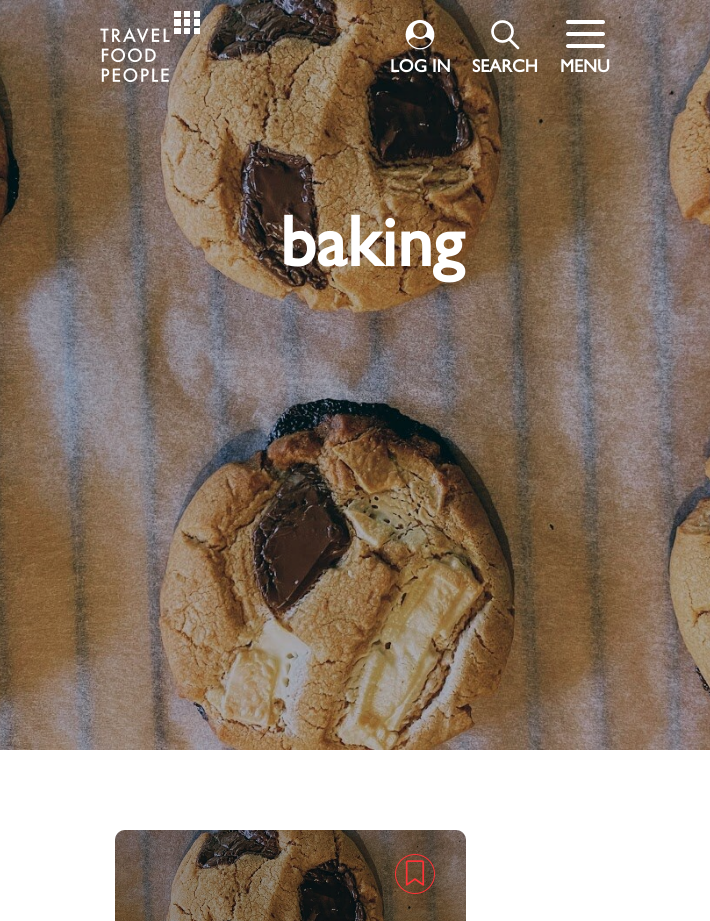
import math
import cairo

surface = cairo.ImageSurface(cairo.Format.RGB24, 710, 921)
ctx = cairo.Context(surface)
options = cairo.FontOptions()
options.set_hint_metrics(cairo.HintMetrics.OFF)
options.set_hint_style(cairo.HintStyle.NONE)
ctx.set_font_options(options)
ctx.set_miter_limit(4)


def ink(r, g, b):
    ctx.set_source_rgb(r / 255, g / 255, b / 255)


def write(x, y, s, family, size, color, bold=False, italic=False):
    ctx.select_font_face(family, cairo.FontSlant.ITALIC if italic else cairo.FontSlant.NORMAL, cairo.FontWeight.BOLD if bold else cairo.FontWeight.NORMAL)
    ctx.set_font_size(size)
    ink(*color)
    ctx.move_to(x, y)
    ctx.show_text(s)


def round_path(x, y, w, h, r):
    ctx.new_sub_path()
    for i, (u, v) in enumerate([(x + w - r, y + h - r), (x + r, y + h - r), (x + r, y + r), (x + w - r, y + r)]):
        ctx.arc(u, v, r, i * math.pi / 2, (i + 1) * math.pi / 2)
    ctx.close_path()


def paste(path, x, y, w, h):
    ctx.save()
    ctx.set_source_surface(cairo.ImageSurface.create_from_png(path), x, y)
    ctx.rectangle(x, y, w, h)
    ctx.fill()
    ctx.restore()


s1 = dict(family="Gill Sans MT", size=18, color=(255, 255, 255), bold=True)
s2 = dict(family="Gill Sans MT", size=72, color=(255, 255, 255), bold=True)

ink(255, 255, 255)
ctx.paint()
paste("pic3.png", 0, 0, 710, 750)
paste("pic1.png", 100, 11, 100, 72)
paste("pic2.png", 405, 20, 30, 30)
write(390, 72, "LOG IN", **s1)
ctx.new_path()
ctx.arc(502.5, 31.5, 10, 0, 2 * math.pi)
ctx.set_line_width(2.7)
ctx.stroke()
ctx.new_path()
ctx.move_to(510, 40)
ctx.line_to(518, 48)
ctx.set_line_cap(cairo.LineCap.ROUND)
ctx.stroke()
write(472, 72, "SEARCH", **s1)
round_path(566, 20, 39, 4, 2)
ctx.fill()
round_path(566, 32, 39, 4, 2)
ctx.fill()
round_path(566, 44, 39, 4, 2)
ctx.fill()
write(560, 72, "MENU", **s1)
write(280, 266, "baking", **s2)
paste("pic4.png", 115, 830, 351, 91)
ctx.set_source_rgba(0, 0, 0, 0.4)
round_path(115, 830, 351, 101, 10)
ctx.fill()
ctx.arc(415, 874, 19.5, 0, 2 * math.pi)
ink(255, 50, 55)
ctx.set_line_width(1)
ctx.set_line_cap(cairo.LineCap.BUTT)
ctx.stroke()
paste("pic5.png", 405, 860, 20, 26)
surface.write_to_png("screenshot.png")
